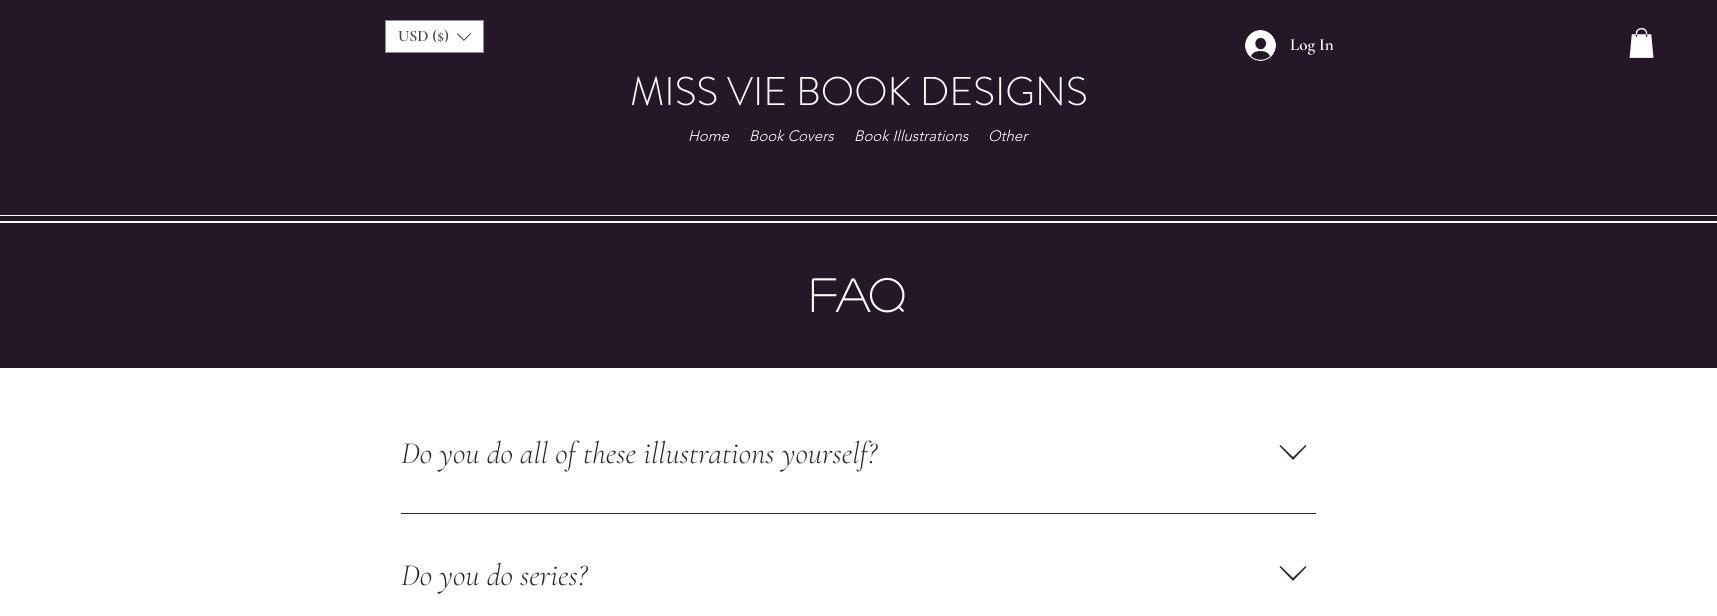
import math
import cairo

surface = cairo.ImageSurface(cairo.Format.RGB24, 1717, 616)
ctx = cairo.Context(surface)
options = cairo.FontOptions()
options.set_hint_metrics(cairo.HintMetrics.OFF)
options.set_hint_style(cairo.HintStyle.NONE)
ctx.set_font_options(options)
ctx.set_miter_limit(4)


def ink(r, g, b):
    ctx.set_source_rgb(r / 255, g / 255, b / 255)


def write(x, y, s, family, size, color, bold=False, italic=False):
    ctx.select_font_face(family, cairo.FontSlant.ITALIC if italic else cairo.FontSlant.NORMAL, cairo.FontWeight.BOLD if bold else cairo.FontWeight.NORMAL)
    ctx.set_font_size(size)
    ink(*color)
    ctx.move_to(x, y)
    ctx.show_text(s)


def block(x, y, w, h, *color):
    ink(*color)
    ctx.rectangle(x, y, w, h)
    ctx.fill()


def paste(path, x, y, w, h):
    ctx.save()
    ctx.set_source_surface(cairo.ImageSurface.create_from_png(path), x, y)
    ctx.rectangle(x, y, w, h)
    ctx.fill()
    ctx.restore()


s1 = dict(family="Cormorant Garamond SemiBold", size=16, color=(65, 65, 65))
s2 = dict(family="Cormorant Garamond SemiBold", size=17, color=(255, 255, 255))
s3 = dict(family="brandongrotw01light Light", size=40, color=(255, 255, 255))
s4 = dict(family="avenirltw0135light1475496 Light", size=15, color=(255, 255, 255), italic=True)
s5 = dict(family="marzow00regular", size=46, color=(255, 255, 255), bold=True)
s6 = dict(family="Cormorant Garamond Light", size=31, color=(36, 42, 53), italic=True)

ink(36, 23, 40)
ctx.paint()
ink(255, 255, 255)
ctx.rectangle(385.5, 20.5, 98, 32)
ctx.fill_preserve()
ink(141, 141, 141)
ctx.set_line_width(1)
ctx.stroke()
write(398, 41, "USD ($)", **s1)
paste("pic1.png", 456, 33, 15, 8)
paste("pic2.png", 1245, 30, 31, 31)
write(1290, 50, "Log In", **s2)
write(630, 105, "MISS VIE BOOK DESIGNS", **s3)
write(688, 141, "Home", **s4)
write(749, 141, "Book Covers", **s4)
write(854, 141, "Book Illustrations", **s4)
write(988, 141, "Other", **s4)
block(0, 215, 1717, 1, 255, 255, 255)
block(0, 221, 1717, 2, 255, 255, 255)
paste("pic3.png", 1629, 28, 25, 30)
write(810, 312, "FAQ", **s5)
block(0, 368, 1717, 248, 255, 255, 255)
write(401, 463, "Do you do all of these illustrations yourself?", **s6)
ctx.set_fill_rule(cairo.FillRule.EVEN_ODD)
ctx.new_path()
ctx.move_to(1305.5, 445)
ctx.line_to(1306.5, 446)
ctx.line_to(1293, 460)
ctx.line_to(1279.5, 446)
ctx.line_to(1280.5, 445)
ctx.line_to(1293, 457)
ctx.close_path()
ctx.fill()
block(401, 513, 915, 1, 36, 42, 53)
write(401, 585, "Do you do series?", **s6)
ctx.new_path()
ctx.move_to(1305.5, 566)
ctx.line_to(1306.5, 567)
ctx.line_to(1293, 581)
ctx.line_to(1279.5, 567)
ctx.line_to(1280.5, 566)
ctx.line_to(1293, 578)
ctx.close_path()
ctx.fill()
surface.write_to_png("screenshot.png")
